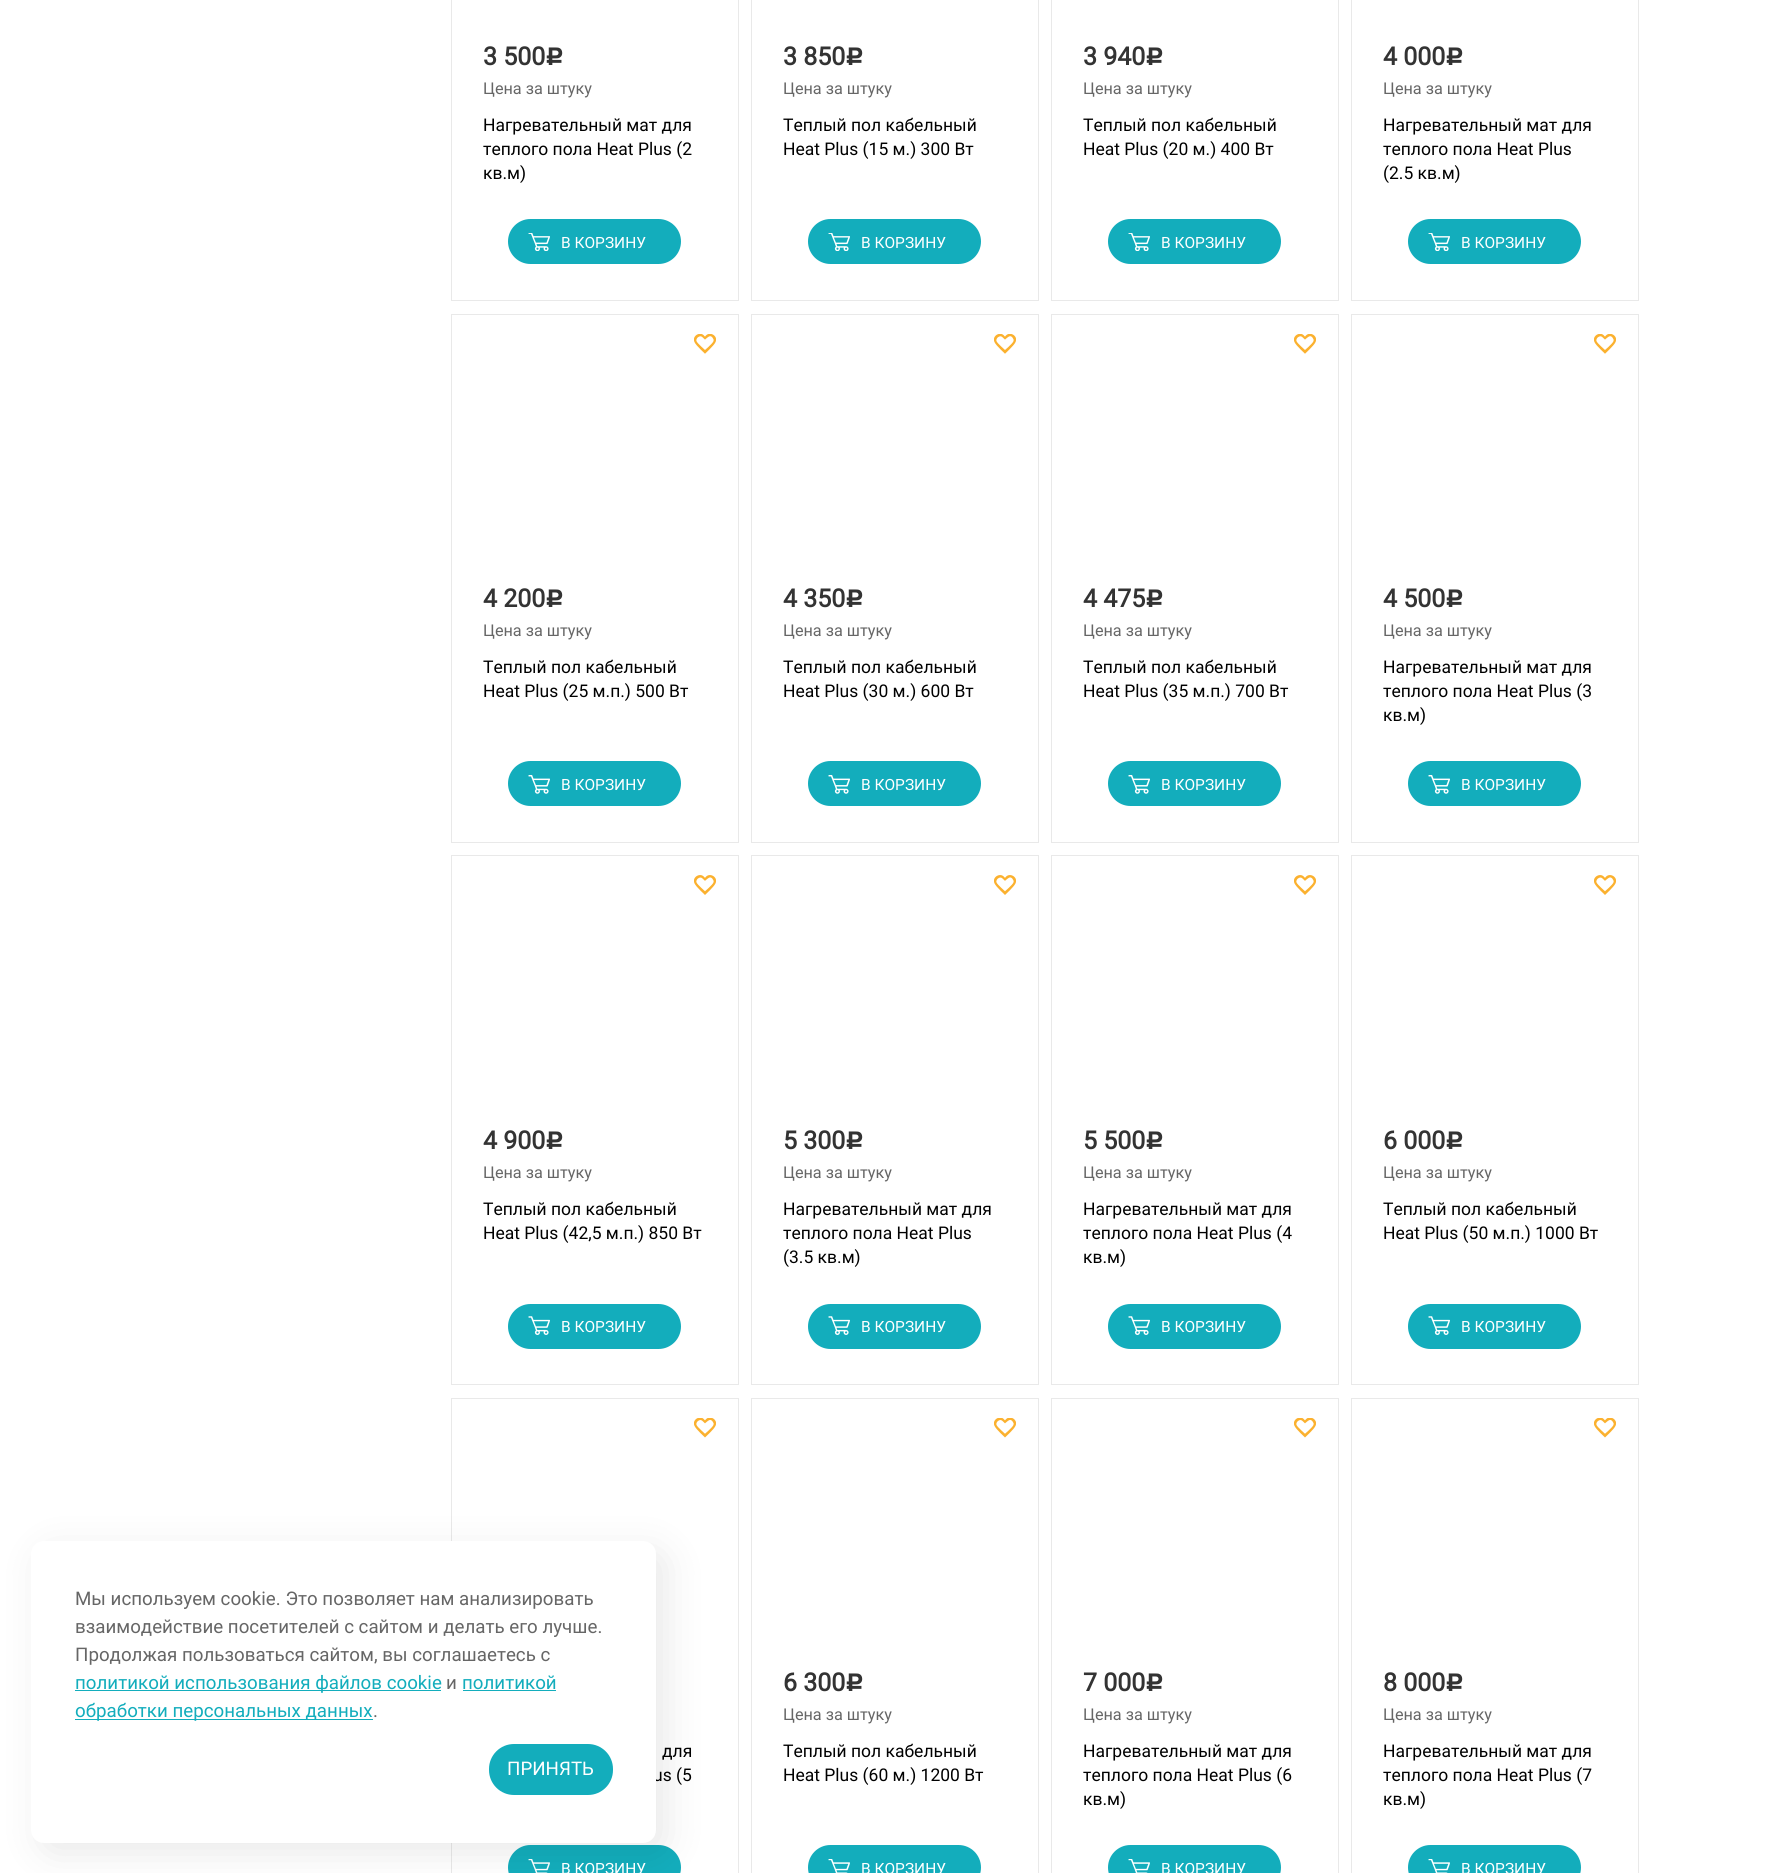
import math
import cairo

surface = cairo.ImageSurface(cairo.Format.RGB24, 1790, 1873)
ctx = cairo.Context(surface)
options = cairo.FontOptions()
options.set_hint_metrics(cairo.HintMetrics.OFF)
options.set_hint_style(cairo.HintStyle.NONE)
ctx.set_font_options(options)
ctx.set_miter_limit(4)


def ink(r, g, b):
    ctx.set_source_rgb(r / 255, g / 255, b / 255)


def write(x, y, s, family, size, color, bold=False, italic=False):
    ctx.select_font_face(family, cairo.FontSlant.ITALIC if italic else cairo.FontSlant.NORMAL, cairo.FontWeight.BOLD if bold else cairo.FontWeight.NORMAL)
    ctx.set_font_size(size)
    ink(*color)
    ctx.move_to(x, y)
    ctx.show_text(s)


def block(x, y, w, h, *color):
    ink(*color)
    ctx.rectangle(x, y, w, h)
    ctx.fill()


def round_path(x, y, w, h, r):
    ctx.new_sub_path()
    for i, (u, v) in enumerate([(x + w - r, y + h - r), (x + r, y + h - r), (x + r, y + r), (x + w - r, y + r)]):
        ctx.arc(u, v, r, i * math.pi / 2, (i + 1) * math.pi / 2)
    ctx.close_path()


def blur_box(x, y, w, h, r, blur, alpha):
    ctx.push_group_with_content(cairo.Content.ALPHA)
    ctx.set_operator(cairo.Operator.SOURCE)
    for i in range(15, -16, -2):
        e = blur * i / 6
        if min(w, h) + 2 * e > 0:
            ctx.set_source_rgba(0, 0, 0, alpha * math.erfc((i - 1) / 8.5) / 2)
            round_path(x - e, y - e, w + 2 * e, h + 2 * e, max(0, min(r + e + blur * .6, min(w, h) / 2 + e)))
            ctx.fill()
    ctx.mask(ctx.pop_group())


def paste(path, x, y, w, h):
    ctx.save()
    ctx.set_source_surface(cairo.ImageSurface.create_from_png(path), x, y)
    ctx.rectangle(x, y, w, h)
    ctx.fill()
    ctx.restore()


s1 = dict(family="Roboto", size=17.5, color=(0, 0, 0))
s2 = dict(family="Roboto", size=18.75, color=(102, 102, 102))
s3 = dict(family="Roboto", size=18.75, color=(19, 173, 188))
s4 = dict(family="Roboto", size=18.75, color=(255, 255, 255))
s5 = dict(family="Roboto", size=25, color=(51, 51, 51), bold=True)
s6 = dict(family="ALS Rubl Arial", size=25, color=(51, 51, 51), bold=True)
s7 = dict(family="Roboto", size=16.25, color=(102, 102, 102))
s8 = dict(family="Roboto", size=15.5, color=(255, 255, 255))

ink(255, 255, 255)
ctx.paint()
ctx.rectangle(451.5, 1398.5, 287, 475)
ink(233, 233, 233)
ctx.set_line_width(1)
ctx.stroke()
ink(19, 173, 188)
round_path(508, 1845, 173, 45, 22.5)
ctx.fill()
paste("pic7.png", 528, 1859, 22, 14)
ink(0, 0, 0)
blur_box(41, 1551, 625, 302, 13, 19, 0.09)
write(653, 1781, "us (5", **s1)
ink(255, 255, 255)
round_path(31, 1541, 625, 302, 13)
ctx.fill()
write(75, 1605, "Мы используем cookie. Это позволяет нам анализировать", **s2)
write(75, 1633, "взаимодействие посетителей с сайтом и делать его лучше.", **s2)
write(75, 1661, "Продолжая пользоваться сайтом, вы соглашаетесь с", **s2)
block(75, 1690, 366, 1, 19, 173, 188)
write(75, 1689, "политикой использования файлов cookie", **s3)
write(446, 1689, "и", **s2)
write(462, 1689, "политикой", **s3)
block(463, 1690, 93, 1, 19, 173, 188)
block(75, 1719, 298, 1, 19, 173, 188)
write(75, 1717, "обработки персональных данных", **s3)
write(373, 1717, ".", **s2)
ink(19, 173, 188)
round_path(489, 1744, 124, 51, 25)
ctx.fill()
write(507, 1775, "ПРИНЯТЬ", **s4)
ctx.rectangle(451.5, -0.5, 287, 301)
ink(233, 233, 233)
ctx.stroke()
write(483, 65, "3 500", **s5)
write(545, 65, "Р", **s6)
write(483, 94, "Цена за штуку", **s7)
write(483, 131, "Нагревательный мат для", **s1)
write(483, 155, "теплого пола Heat Plus (2", **s1)
write(483, 179, "кв.м)", **s1)
ink(19, 173, 188)
round_path(508, 219, 173, 45, 22.5)
ctx.fill()
paste("pic1.png", 528, 233, 22, 18)
write(561, 248, "В КОРЗИНУ", **s8)
ctx.rectangle(751.5, -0.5, 287, 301)
ink(233, 233, 233)
ctx.stroke()
write(783, 65, "3 850", **s5)
write(845, 65, "Р", **s6)
write(783, 94, "Цена за штуку", **s7)
write(783, 131, "Теплый пол кабельный", **s1)
write(783, 155, "Heat Plus (15 м.) 300 Вт", **s1)
ink(19, 173, 188)
round_path(808, 219, 173, 45, 22.5)
ctx.fill()
paste("pic1.png", 828, 233, 22, 18)
write(861, 248, "В КОРЗИНУ", **s8)
ctx.rectangle(1051.5, -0.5, 287, 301)
ink(233, 233, 233)
ctx.stroke()
write(1083, 65, "3 940", **s5)
write(1145, 65, "Р", **s6)
write(1083, 94, "Цена за штуку", **s7)
write(1083, 131, "Теплый пол кабельный", **s1)
write(1083, 155, "Heat Plus (20 м.) 400 Вт", **s1)
ink(19, 173, 188)
round_path(1108, 219, 173, 45, 22.5)
ctx.fill()
paste("pic1.png", 1128, 233, 22, 18)
write(1161, 248, "В КОРЗИНУ", **s8)
ctx.rectangle(1351.5, -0.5, 287, 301)
ink(233, 233, 233)
ctx.stroke()
write(1383, 65, "4 000", **s5)
write(1445, 65, "Р", **s6)
write(1383, 94, "Цена за штуку", **s7)
write(1383, 131, "Нагревательный мат для", **s1)
write(1383, 155, "теплого пола Heat Plus", **s1)
write(1383, 179, "(2.5 кв.м)", **s1)
ink(19, 173, 188)
round_path(1408, 219, 173, 45, 22.5)
ctx.fill()
paste("pic1.png", 1428, 233, 22, 18)
write(1461, 248, "В КОРЗИНУ", **s8)
ctx.rectangle(451.5, 314.5, 287, 528)
ink(233, 233, 233)
ctx.stroke()
write(483, 607, "4 200", **s5)
write(545, 607, "Р", **s6)
write(483, 636, "Цена за штуку", **s7)
write(483, 673, "Теплый пол кабельный", **s1)
write(483, 697, "Heat Plus (25 м.п.) 500 Вт", **s1)
paste("pic2.png", 694, 334, 22, 20)
ink(19, 173, 188)
round_path(508, 761, 173, 45, 22.5)
ctx.fill()
paste("pic3.png", 528, 775, 22, 19)
write(561, 790, "В КОРЗИНУ", **s8)
ctx.rectangle(751.5, 314.5, 287, 528)
ink(233, 233, 233)
ctx.stroke()
write(783, 607, "4 350", **s5)
write(845, 607, "Р", **s6)
write(783, 636, "Цена за штуку", **s7)
write(783, 673, "Теплый пол кабельный", **s1)
write(783, 697, "Heat Plus (30 м.) 600 Вт", **s1)
paste("pic2.png", 994, 334, 22, 20)
ink(19, 173, 188)
round_path(808, 761, 173, 45, 22.5)
ctx.fill()
paste("pic3.png", 828, 775, 22, 19)
write(861, 790, "В КОРЗИНУ", **s8)
ctx.rectangle(1051.5, 314.5, 287, 528)
ink(233, 233, 233)
ctx.stroke()
write(1083, 607, "4 475", **s5)
write(1145, 607, "Р", **s6)
write(1083, 636, "Цена за штуку", **s7)
write(1083, 673, "Теплый пол кабельный", **s1)
write(1083, 697, "Heat Plus (35 м.п.) 700 Вт", **s1)
paste("pic2.png", 1294, 334, 22, 20)
ink(19, 173, 188)
round_path(1108, 761, 173, 45, 22.5)
ctx.fill()
paste("pic3.png", 1128, 775, 22, 19)
write(1161, 790, "В КОРЗИНУ", **s8)
ctx.rectangle(1351.5, 314.5, 287, 528)
ink(233, 233, 233)
ctx.stroke()
write(1383, 607, "4 500", **s5)
write(1445, 607, "Р", **s6)
write(1383, 636, "Цена за штуку", **s7)
write(1383, 673, "Нагревательный мат для", **s1)
write(1383, 697, "теплого пола Heat Plus (3", **s1)
write(1383, 721, "кв.м)", **s1)
paste("pic2.png", 1594, 334, 22, 20)
ink(19, 173, 188)
round_path(1408, 761, 173, 45, 22.5)
ctx.fill()
paste("pic3.png", 1428, 775, 22, 19)
write(1461, 790, "В КОРЗИНУ", **s8)
ctx.rectangle(451.5, 855.5, 287, 529)
ink(233, 233, 233)
ctx.stroke()
write(483, 1149, "4 900", **s5)
write(545, 1149, "Р", **s6)
write(483, 1178, "Цена за штуку", **s7)
write(483, 1215, "Теплый пол кабельный", **s1)
write(483, 1239, "Heat Plus (42,5 м.п.) 850 Вт", **s1)
paste("pic4.png", 694, 875, 22, 20)
ink(19, 173, 188)
round_path(508, 1304, 173, 45, 22.5)
ctx.fill()
paste("pic5.png", 528, 1316, 22, 19)
write(561, 1332, "В КОРЗИНУ", **s8)
ctx.rectangle(751.5, 855.5, 287, 529)
ink(233, 233, 233)
ctx.stroke()
write(783, 1149, "5 300", **s5)
write(845, 1149, "Р", **s6)
write(783, 1178, "Цена за штуку", **s7)
write(783, 1215, "Нагревательный мат для", **s1)
write(783, 1239, "теплого пола Heat Plus", **s1)
write(783, 1263, "(3.5 кв.м)", **s1)
paste("pic4.png", 994, 875, 22, 20)
ink(19, 173, 188)
round_path(808, 1304, 173, 45, 22.5)
ctx.fill()
paste("pic5.png", 828, 1316, 22, 19)
write(861, 1332, "В КОРЗИНУ", **s8)
ctx.rectangle(1051.5, 855.5, 287, 529)
ink(233, 233, 233)
ctx.stroke()
write(1083, 1149, "5 500", **s5)
write(1145, 1149, "Р", **s6)
write(1083, 1178, "Цена за штуку", **s7)
write(1083, 1215, "Нагревательный мат для", **s1)
write(1083, 1239, "теплого пола Heat Plus (4", **s1)
write(1083, 1263, "кв.м)", **s1)
paste("pic4.png", 1294, 875, 22, 20)
ink(19, 173, 188)
round_path(1108, 1304, 173, 45, 22.5)
ctx.fill()
paste("pic5.png", 1128, 1316, 22, 19)
write(1161, 1332, "В КОРЗИНУ", **s8)
ctx.rectangle(1351.5, 855.5, 287, 529)
ink(233, 233, 233)
ctx.stroke()
write(1383, 1149, "6 000", **s5)
write(1445, 1149, "Р", **s6)
write(1383, 1178, "Цена за штуку", **s7)
write(1383, 1215, "Теплый пол кабельный", **s1)
write(1383, 1239, "Heat Plus (50 м.п.) 1000 Вт", **s1)
paste("pic4.png", 1594, 875, 22, 20)
ink(19, 173, 188)
round_path(1408, 1304, 173, 45, 22.5)
ctx.fill()
paste("pic5.png", 1428, 1316, 22, 19)
write(1461, 1332, "В КОРЗИНУ", **s8)
write(662, 1757, "для", **s1)
paste("pic6.png", 694, 1418, 22, 20)
write(561, 1874, "В КОРЗИНУ", **s8)
ctx.rectangle(751.5, 1398.5, 287, 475)
ink(233, 233, 233)
ctx.stroke()
write(783, 1691, "6 300", **s5)
write(845, 1691, "Р", **s6)
write(783, 1720, "Цена за штуку", **s7)
write(783, 1757, "Теплый пол кабельный", **s1)
write(783, 1781, "Heat Plus (60 м.) 1200 Вт", **s1)
paste("pic6.png", 994, 1418, 22, 20)
ink(19, 173, 188)
round_path(808, 1845, 173, 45, 22.5)
ctx.fill()
paste("pic7.png", 828, 1859, 22, 14)
write(861, 1874, "В КОРЗИНУ", **s8)
ctx.rectangle(1051.5, 1398.5, 287, 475)
ink(233, 233, 233)
ctx.stroke()
write(1083, 1691, "7 000", **s5)
write(1145, 1691, "Р", **s6)
write(1083, 1720, "Цена за штуку", **s7)
write(1083, 1757, "Нагревательный мат для", **s1)
write(1083, 1781, "теплого пола Heat Plus (6", **s1)
write(1083, 1805, "кв.м)", **s1)
paste("pic6.png", 1294, 1418, 22, 20)
ink(19, 173, 188)
round_path(1108, 1845, 173, 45, 22.5)
ctx.fill()
paste("pic7.png", 1128, 1859, 22, 14)
write(1161, 1874, "В КОРЗИНУ", **s8)
ctx.rectangle(1351.5, 1398.5, 287, 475)
ink(233, 233, 233)
ctx.stroke()
write(1383, 1691, "8 000", **s5)
write(1445, 1691, "Р", **s6)
write(1383, 1720, "Цена за штуку", **s7)
write(1383, 1757, "Нагревательный мат для", **s1)
write(1383, 1781, "теплого пола Heat Plus (7", **s1)
write(1383, 1805, "кв.м)", **s1)
paste("pic6.png", 1594, 1418, 22, 20)
ink(19, 173, 188)
round_path(1408, 1845, 173, 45, 22.5)
ctx.fill()
paste("pic7.png", 1428, 1859, 22, 14)
write(1461, 1874, "В КОРЗИНУ", **s8)
surface.write_to_png("screenshot.png")
